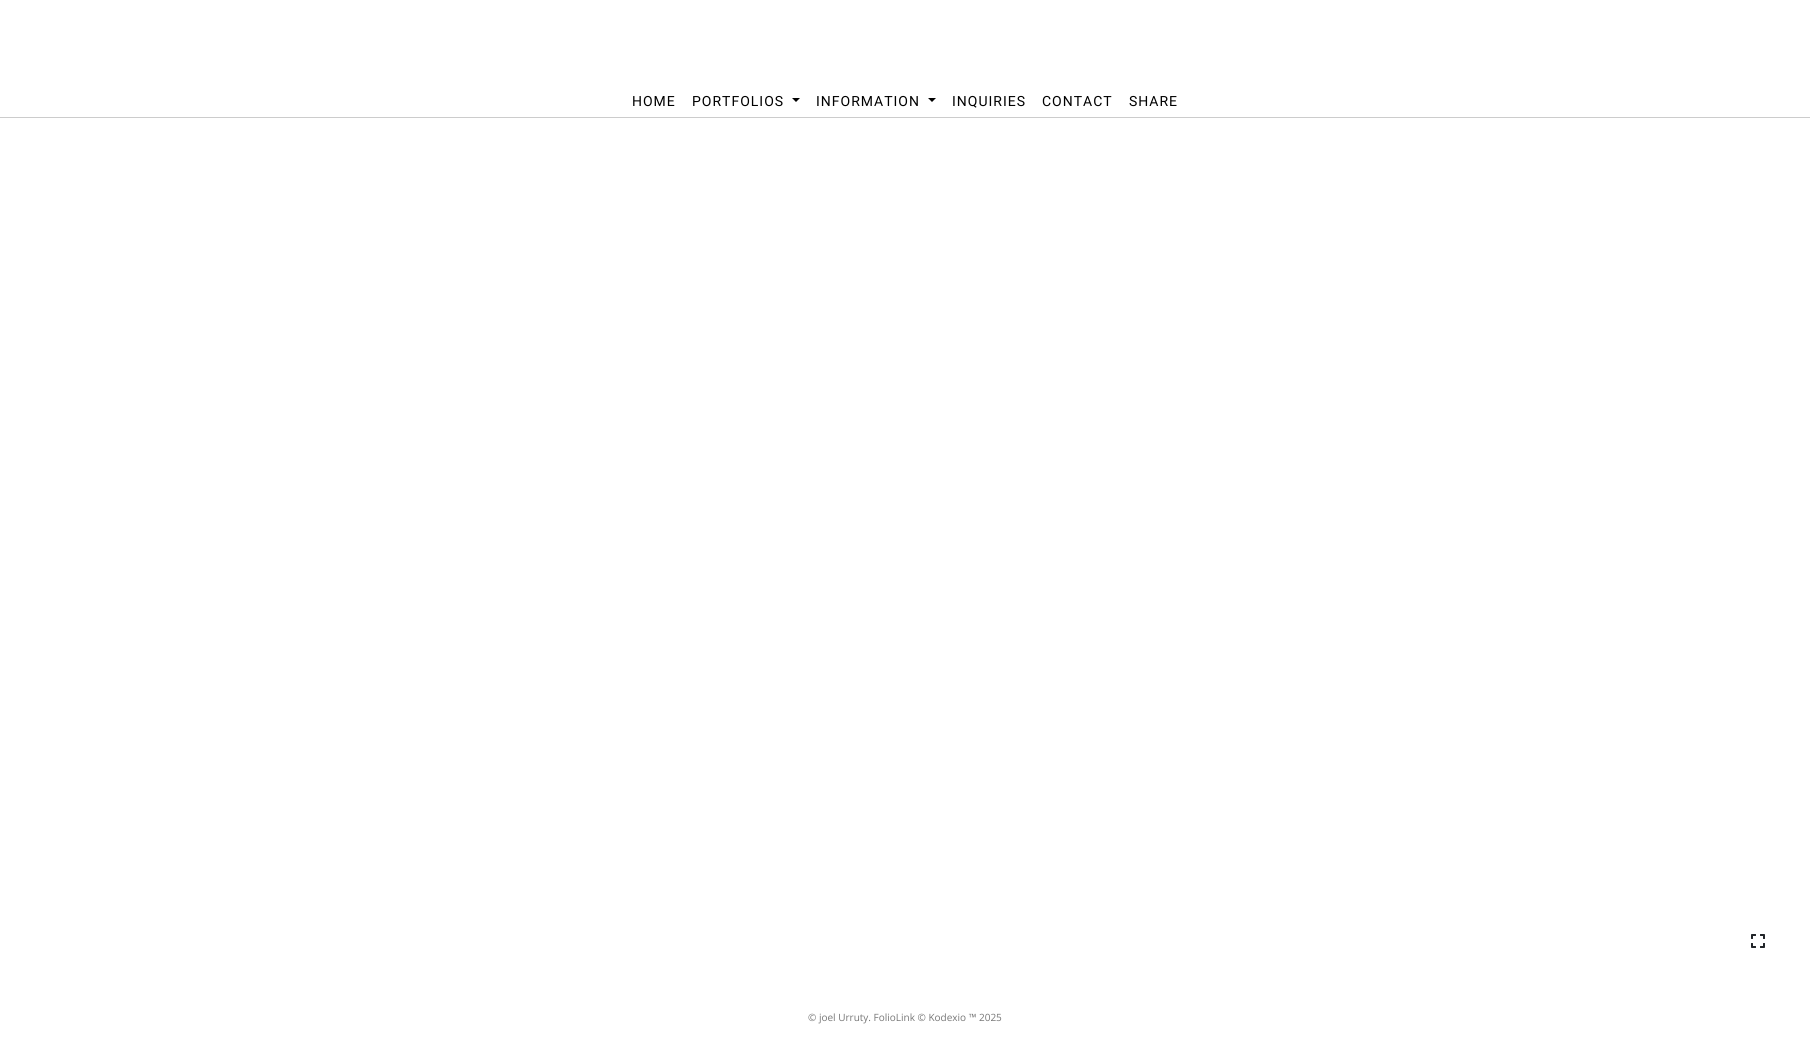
import math
import cairo

surface = cairo.ImageSurface(cairo.Format.RGB24, 1810, 1049)
ctx = cairo.Context(surface)
options = cairo.FontOptions()
options.set_hint_metrics(cairo.HintMetrics.OFF)
options.set_hint_style(cairo.HintStyle.NONE)
ctx.set_font_options(options)
ctx.set_miter_limit(4)


def ink(r, g, b):
    ctx.set_source_rgb(r / 255, g / 255, b / 255)


def write(x, y, s, family, size, color, bold=False, italic=False):
    ctx.select_font_face(family, cairo.FontSlant.ITALIC if italic else cairo.FontSlant.NORMAL, cairo.FontWeight.BOLD if bold else cairo.FontWeight.NORMAL)
    ctx.set_font_size(size)
    ink(*color)
    ctx.move_to(x, y)
    ctx.show_text(s)


def write_spaced(x, y, s, letter, word):
    ctx.move_to(x, y)
    for ch in s:
        ctx.show_text(ch)
        ctx.rel_move_to(letter + word * (ch == ' '), 0)


def block(x, y, w, h, *color):
    ink(*color)
    ctx.rectangle(x, y, w, h)
    ctx.fill()


def paste(path, x, y, w, h):
    ctx.save()
    ctx.set_source_surface(cairo.ImageSurface.create_from_png(path), x, y)
    ctx.rectangle(x, y, w, h)
    ctx.fill()
    ctx.restore()


s1 = dict(family="Open Sans", size=10, color=(119, 119, 119))

ink(255, 255, 255)
ctx.paint()
block(0, 117, 1810, 1, 204, 204, 204)
ctx.select_font_face("Roboto")
ctx.set_font_size(14)
ink(0, 0, 0)
write_spaced(632, 106, "HOME", 1, 0)
write_spaced(692, 106, "PORTFOLIOS", 1, 0)
ctx.new_path()
ctx.move_to(792, 98)
ctx.line_to(800, 98)
ctx.line_to(796, 102)
ctx.close_path()
ctx.fill()
write_spaced(816, 106, "INFORMATION", 1, 0)
ctx.new_path()
ctx.move_to(928, 98)
ctx.line_to(936, 98)
ctx.line_to(932, 102)
ctx.close_path()
ctx.fill()
write_spaced(952, 106, "INQUIRIES", 1, 0)
write_spaced(1042, 106, "CONTACT", 1, 0)
write_spaced(1129, 106, "SHARE", 1, 0)
write(808, 1021, "© joel Urruty. FolioLink © Kodexio ™ 2025", **s1)
paste("pic1.png", 1751, 934, 14, 14)
surface.write_to_png("screenshot.png")
